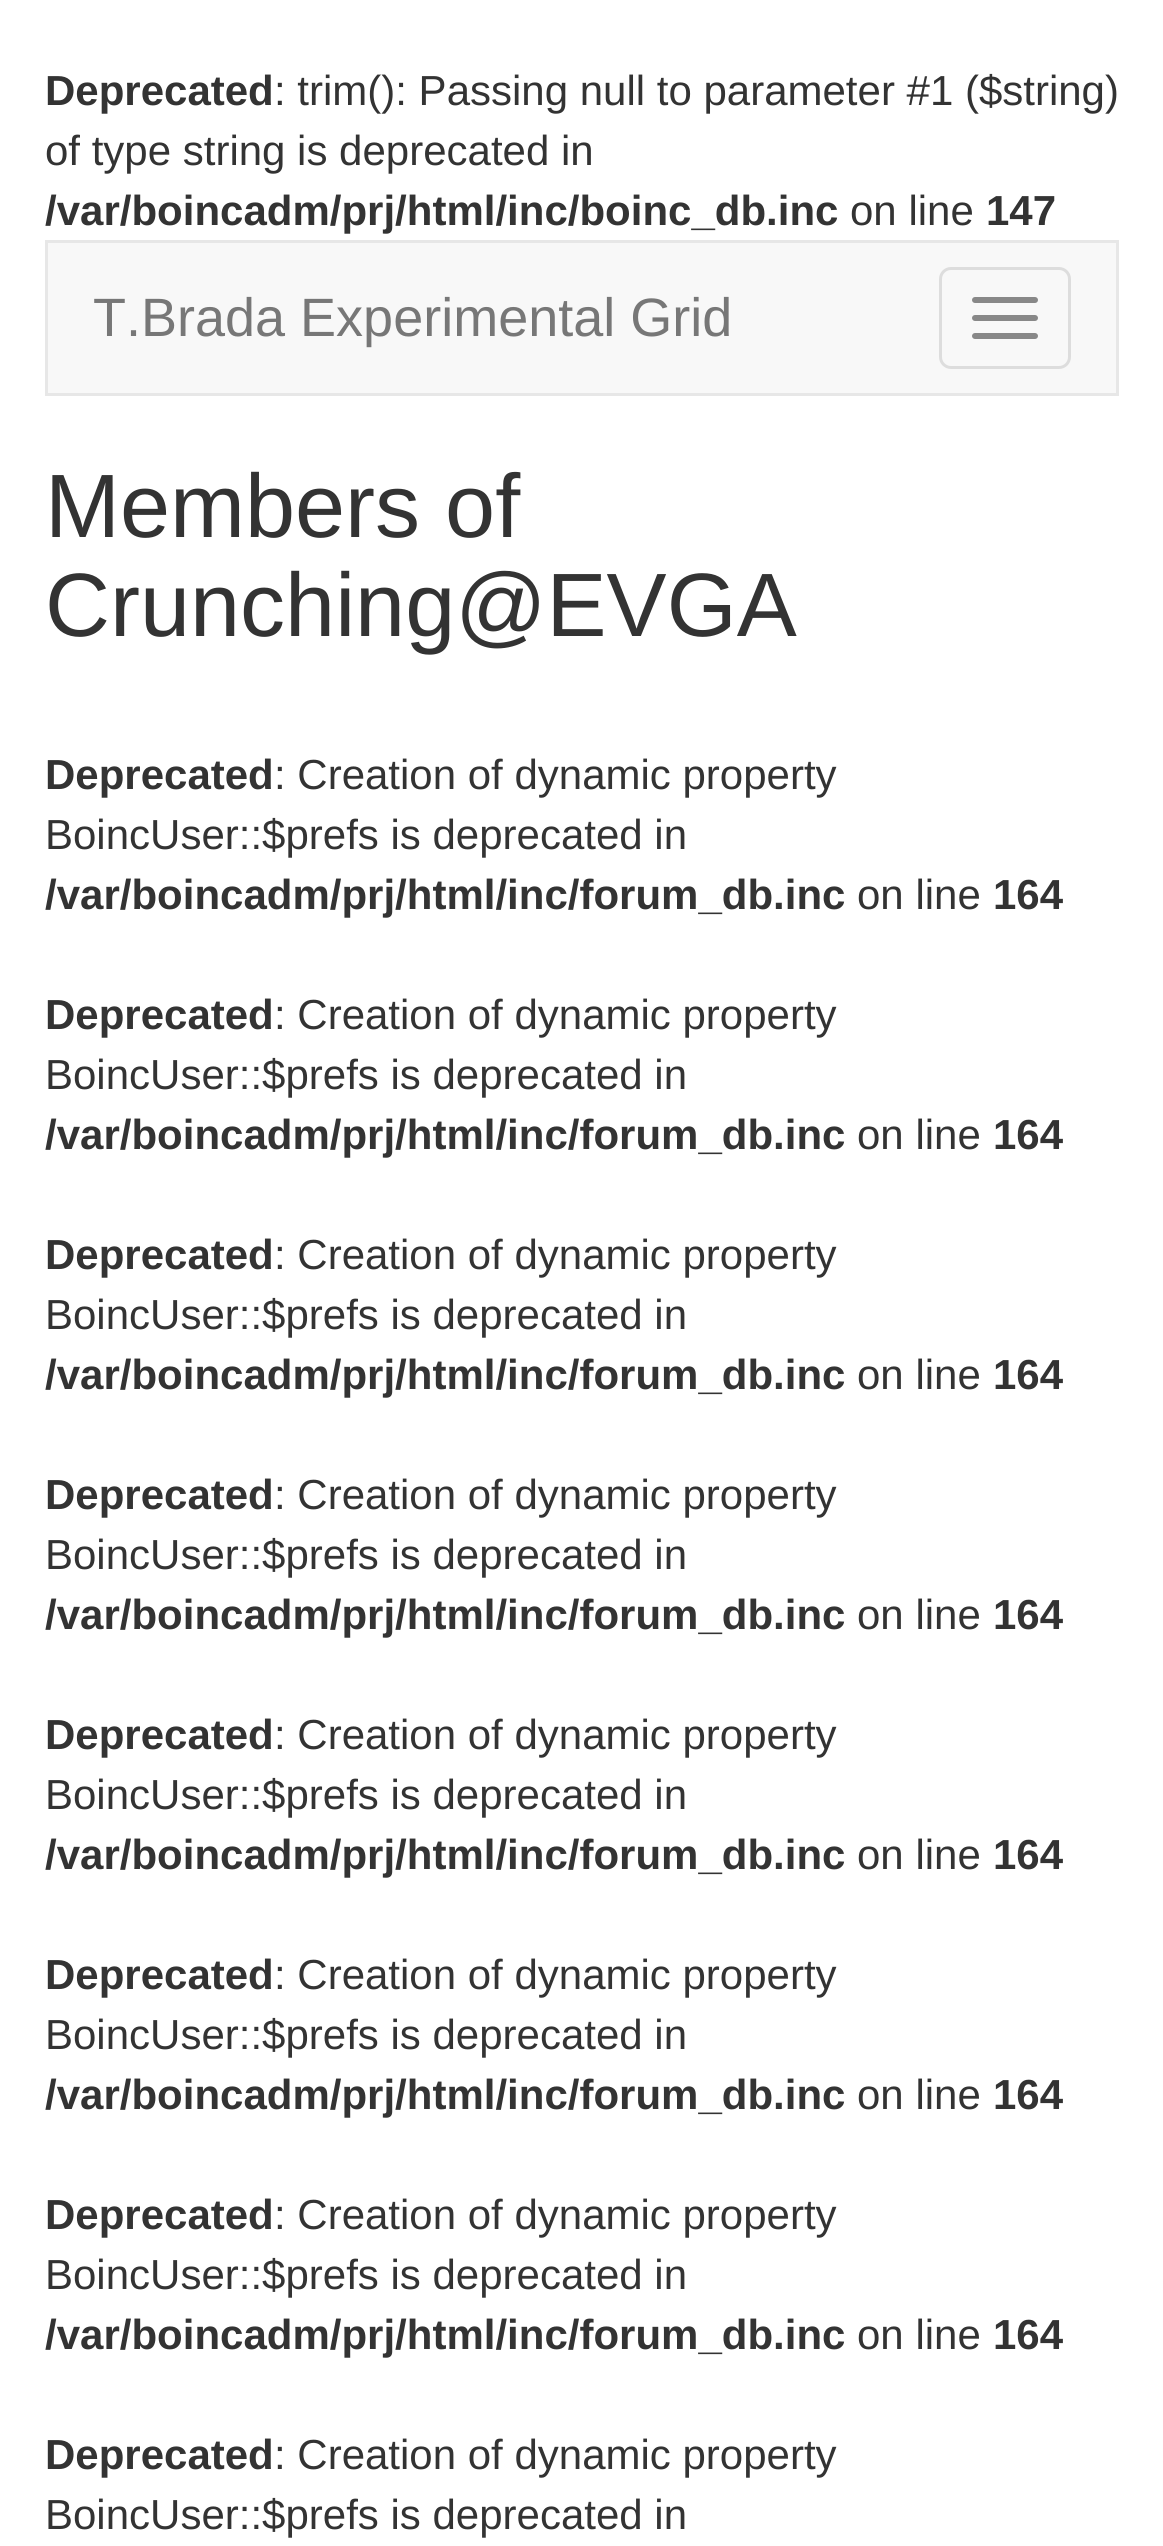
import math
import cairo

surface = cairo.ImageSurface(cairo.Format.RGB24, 1163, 2546)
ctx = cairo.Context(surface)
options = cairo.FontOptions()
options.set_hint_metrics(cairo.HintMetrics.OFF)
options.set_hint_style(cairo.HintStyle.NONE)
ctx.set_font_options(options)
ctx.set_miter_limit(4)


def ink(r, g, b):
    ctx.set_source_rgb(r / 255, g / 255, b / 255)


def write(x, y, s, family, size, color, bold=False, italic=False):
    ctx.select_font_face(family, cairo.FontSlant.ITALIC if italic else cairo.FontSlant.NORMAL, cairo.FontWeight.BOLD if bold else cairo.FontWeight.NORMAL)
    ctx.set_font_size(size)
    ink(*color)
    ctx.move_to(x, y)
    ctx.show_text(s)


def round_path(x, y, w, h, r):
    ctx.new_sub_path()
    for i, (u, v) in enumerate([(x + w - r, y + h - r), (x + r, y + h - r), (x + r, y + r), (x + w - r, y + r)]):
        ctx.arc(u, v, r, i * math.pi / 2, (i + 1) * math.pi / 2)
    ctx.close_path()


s1 = dict(family="Liberation Sans", size=42, color=(51, 51, 51), bold=True)
s2 = dict(family="Liberation Sans", size=42, color=(51, 51, 51))
s3 = dict(family="Liberation Sans", size=54, color=(119, 119, 119))
s4 = dict(family="Liberation Sans", size=90, color=(51, 51, 51))

ink(255, 255, 255)
ctx.paint()
write(45, 105, "Deprecated", **s1)
write(274, 105, ": trim(): Passing null to parameter #1 ($string)", **s2)
write(45, 165, "of type string is deprecated in", **s2)
write(45, 225, "/var/boincadm/prj/html/inc/boinc_db.inc", **s1)
write(850, 225, "on line", **s2)
write(986, 225, "147", **s1)
ink(248, 248, 248)
ctx.rectangle(46.5, 241.5, 1071, 153)
ctx.fill_preserve()
ink(231, 231, 231)
ctx.set_line_width(3)
ctx.stroke()
write(93, 336, "T.Brada Experimental Grid", **s3)
round_path(940.5, 268.5, 129, 99, 10.5)
ink(221, 221, 221)
ctx.stroke()
ink(136, 136, 136)
round_path(972, 297, 66, 6, 3)
ctx.fill()
round_path(972, 315, 66, 6, 3)
ctx.fill()
round_path(972, 333, 66, 6, 3)
ctx.fill()
write(45, 537, "Members of", **s4)
write(45, 636, "Crunching@EVGA", **s4)
write(45, 789, "Deprecated", **s1)
write(274, 789, ": Creation of dynamic property", **s2)
write(45, 849, "BoincUser::$prefs is deprecated in", **s2)
write(45, 909, "/var/boincadm/prj/html/inc/forum_db.inc", **s1)
write(857, 909, "on line", **s2)
write(993, 909, "164", **s1)
write(45, 1029, "Deprecated", **s1)
write(274, 1029, ": Creation of dynamic property", **s2)
write(45, 1089, "BoincUser::$prefs is deprecated in", **s2)
write(45, 1149, "/var/boincadm/prj/html/inc/forum_db.inc", **s1)
write(857, 1149, "on line", **s2)
write(993, 1149, "164", **s1)
write(45, 1269, "Deprecated", **s1)
write(274, 1269, ": Creation of dynamic property", **s2)
write(45, 1329, "BoincUser::$prefs is deprecated in", **s2)
write(45, 1389, "/var/boincadm/prj/html/inc/forum_db.inc", **s1)
write(857, 1389, "on line", **s2)
write(993, 1389, "164", **s1)
write(45, 1509, "Deprecated", **s1)
write(274, 1509, ": Creation of dynamic property", **s2)
write(45, 1569, "BoincUser::$prefs is deprecated in", **s2)
write(45, 1629, "/var/boincadm/prj/html/inc/forum_db.inc", **s1)
write(857, 1629, "on line", **s2)
write(993, 1629, "164", **s1)
write(45, 1749, "Deprecated", **s1)
write(274, 1749, ": Creation of dynamic property", **s2)
write(45, 1809, "BoincUser::$prefs is deprecated in", **s2)
write(45, 1869, "/var/boincadm/prj/html/inc/forum_db.inc", **s1)
write(857, 1869, "on line", **s2)
write(993, 1869, "164", **s1)
write(45, 1989, "Deprecated", **s1)
write(274, 1989, ": Creation of dynamic property", **s2)
write(45, 2049, "BoincUser::$prefs is deprecated in", **s2)
write(45, 2109, "/var/boincadm/prj/html/inc/forum_db.inc", **s1)
write(857, 2109, "on line", **s2)
write(993, 2109, "164", **s1)
write(45, 2229, "Deprecated", **s1)
write(274, 2229, ": Creation of dynamic property", **s2)
write(45, 2289, "BoincUser::$prefs is deprecated in", **s2)
write(45, 2349, "/var/boincadm/prj/html/inc/forum_db.inc", **s1)
write(857, 2349, "on line", **s2)
write(993, 2349, "164", **s1)
write(45, 2469, "Deprecated", **s1)
write(274, 2469, ": Creation of dynamic property", **s2)
write(45, 2529, "BoincUser::$prefs is deprecated in", **s2)
surface.write_to_png("screenshot.png")
